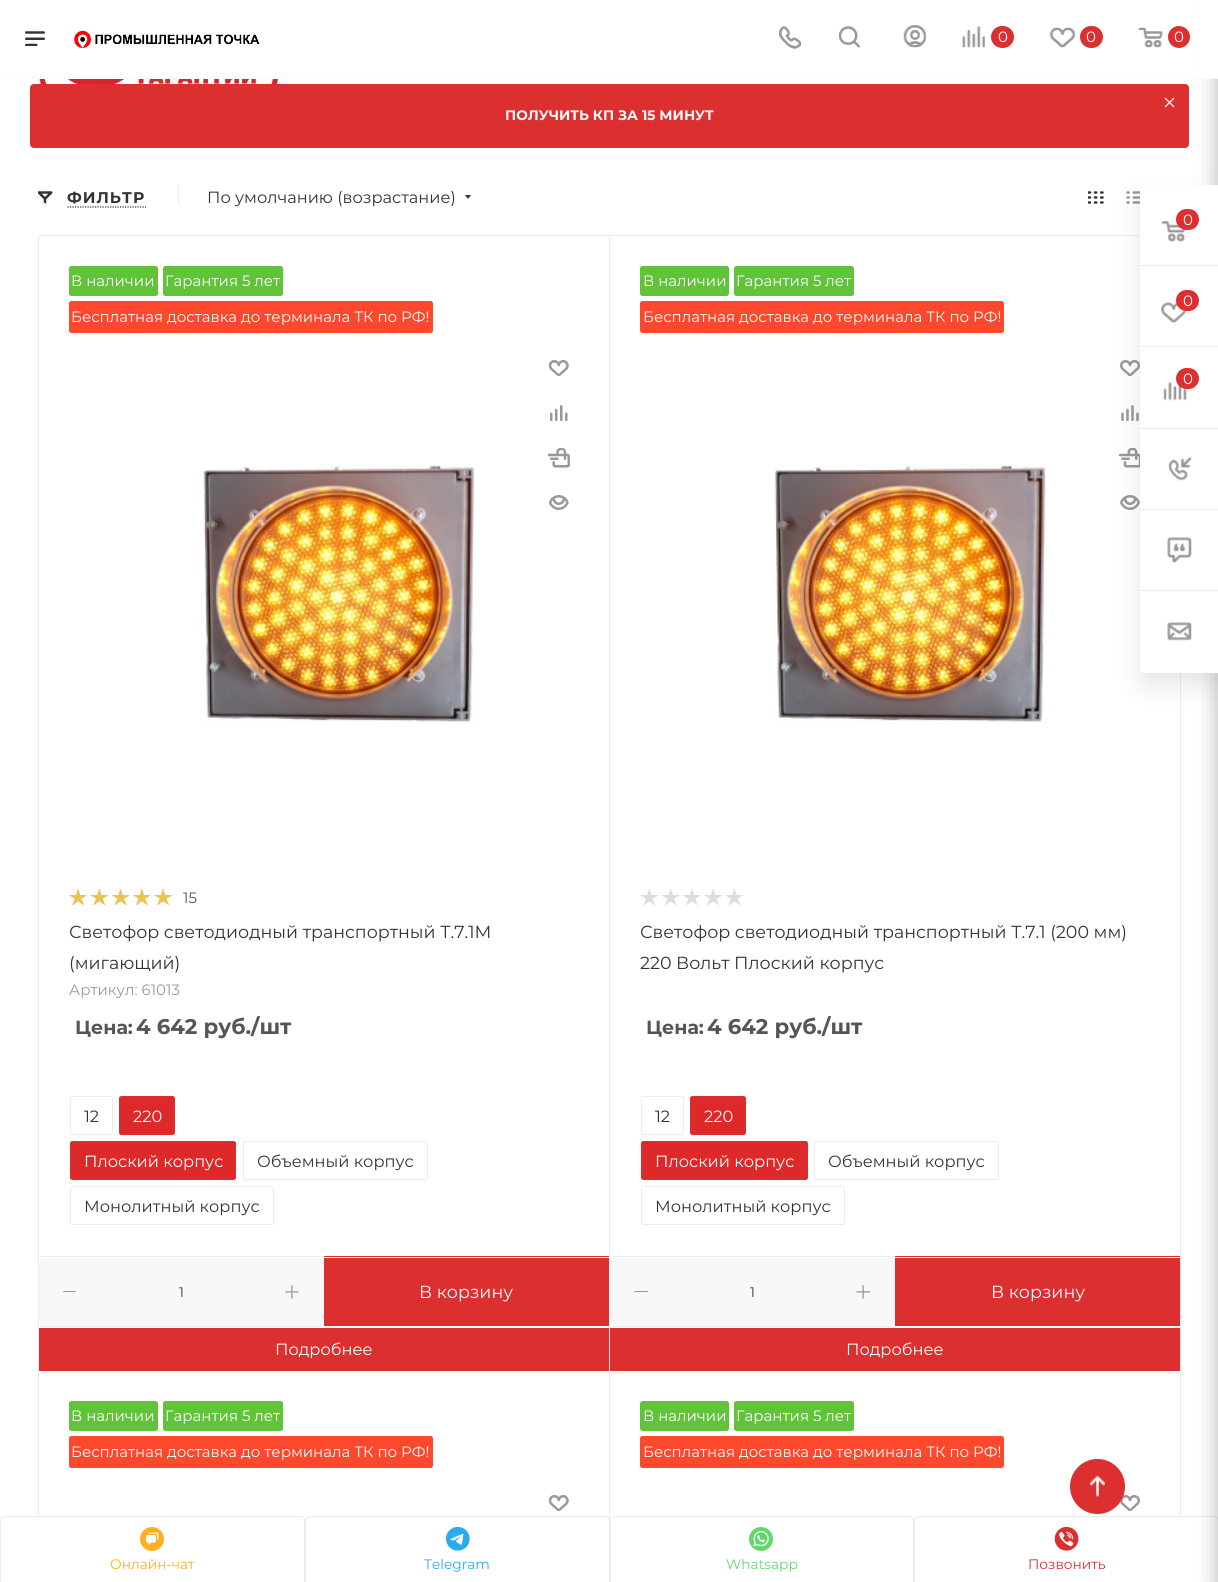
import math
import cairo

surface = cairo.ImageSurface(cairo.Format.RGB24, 1218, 1582)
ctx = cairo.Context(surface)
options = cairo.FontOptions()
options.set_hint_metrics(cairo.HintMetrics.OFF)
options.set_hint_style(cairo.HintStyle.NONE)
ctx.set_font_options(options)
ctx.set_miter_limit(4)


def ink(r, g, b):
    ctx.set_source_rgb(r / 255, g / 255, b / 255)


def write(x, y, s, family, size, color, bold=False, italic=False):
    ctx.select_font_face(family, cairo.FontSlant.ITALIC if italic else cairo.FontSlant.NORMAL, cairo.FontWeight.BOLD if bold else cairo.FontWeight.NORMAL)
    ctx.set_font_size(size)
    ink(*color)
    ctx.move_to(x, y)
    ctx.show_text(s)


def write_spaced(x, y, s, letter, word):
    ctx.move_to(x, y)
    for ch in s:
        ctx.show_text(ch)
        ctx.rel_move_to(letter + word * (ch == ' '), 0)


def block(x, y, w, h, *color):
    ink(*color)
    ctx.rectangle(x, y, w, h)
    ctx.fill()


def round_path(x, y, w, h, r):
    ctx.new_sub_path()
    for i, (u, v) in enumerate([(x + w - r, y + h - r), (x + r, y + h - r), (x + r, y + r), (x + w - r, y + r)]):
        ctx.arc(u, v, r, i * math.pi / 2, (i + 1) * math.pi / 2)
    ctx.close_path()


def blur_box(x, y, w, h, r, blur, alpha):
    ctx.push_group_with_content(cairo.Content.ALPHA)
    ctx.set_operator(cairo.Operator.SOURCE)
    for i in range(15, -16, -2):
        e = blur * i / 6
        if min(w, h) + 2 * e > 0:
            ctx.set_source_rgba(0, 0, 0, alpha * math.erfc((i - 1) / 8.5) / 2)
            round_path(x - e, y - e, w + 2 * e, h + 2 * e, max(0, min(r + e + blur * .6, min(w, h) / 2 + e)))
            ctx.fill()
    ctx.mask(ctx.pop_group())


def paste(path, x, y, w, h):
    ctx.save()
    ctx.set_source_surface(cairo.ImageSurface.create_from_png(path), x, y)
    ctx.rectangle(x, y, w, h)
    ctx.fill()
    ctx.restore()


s1 = dict(family="Montserrat", size=15, color=(255, 255, 255))
s2 = dict(family="Montserrat Light", size=30, color=(255, 255, 255))
s3 = dict(family="Montserrat", size=13.75, color=(255, 255, 255), bold=True)
s4 = dict(family="Montserrat", size=16.25, color=(51, 51, 51))
s5 = dict(family="Montserrat", size=15, color=(85, 85, 85))
s6 = dict(family="Montserrat", size=17.5, color=(51, 51, 51))
s7 = dict(family="Montserrat", size=15, color=(153, 153, 153))
s8 = dict(family="Montserrat", size=19, color=(85, 85, 85), bold=True)
s9 = dict(family="Montserrat", size=21.25, color=(85, 85, 85), bold=True)
s10 = dict(family="Montserrat", size=16.25, color=(255, 255, 255))
s11 = dict(family="Montserrat", size=13.75, color=(51, 51, 51))
s12 = dict(family="Montserrat", size=17.5, color=(255, 255, 255))
s13 = dict(family="Montserrat", size=13.75, color=(255, 174, 32))
s14 = dict(family="Montserrat", size=13.75, color=(43, 172, 239))
s15 = dict(family="Montserrat", size=13.75, color=(97, 216, 106))
s16 = dict(family="Montserrat", size=13.75, color=(220, 47, 47))

ink(255, 255, 255)
ctx.paint()
ctx.rectangle(38.5, 235.5, 571, 1135)
ink(236, 236, 236)
ctx.set_line_width(1)
ctx.stroke()
ctx.rectangle(609.5, 235.5, 571, 1135)
ctx.stroke()
ctx.rectangle(38.5, 1370.5, 571, 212)
ctx.stroke()
ctx.rectangle(609.5, 1370.5, 571, 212)
ctx.stroke()
ink(255, 255, 255)
ctx.new_path()
ctx.move_to(919, 1516.5)
ctx.line_to(1214, 1516.5)
ctx.curve_to(1216.5, 1516.5, 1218.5, 1518.5, 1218.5, 1521)
ctx.line_to(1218.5, 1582.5)
ctx.line_to(914.5, 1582.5)
ctx.line_to(914.5, 1521)
ctx.curve_to(914.5, 1518.5, 916.5, 1516.5, 919, 1516.5)
ctx.close_path()
ctx.fill_preserve()
ink(234, 234, 234)
ctx.stroke()
ink(44, 44, 44)
blur_box(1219, 8, 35, 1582, 2.5, 11, 0.4)
block(1199, 0, 19, 78, 255, 255, 255)
block(0, 78, 1218, 1, 248, 248, 248)
paste("pic1.png", 25, 31, 20, 15)
paste("pic2.png", 74, 30, 186, 18)
paste("pic3.png", 779, 26, 22, 23)
paste("pic4.png", 839, 26, 21, 22)
paste("pic5.png", 903, 25, 24, 23)
paste("pic6.png", 962, 26, 24, 22)
ink(220, 47, 47)
round_path(991, 26, 23, 22, 11)
ctx.fill()
write(998, 42, "0", **s1)
paste("pic7.png", 1049, 27, 26, 21)
ink(220, 47, 47)
round_path(1080, 26, 23, 22, 11)
ctx.fill()
write(1086, 42, "0", **s1)
paste("pic8.png", 1138, 27, 25, 21)
ink(220, 47, 47)
ctx.arc(1179, 37, 11, 0, 2 * math.pi)
ctx.fill()
write(1174, 42, "0", **s1)
ink(220, 47, 47)
round_path(30, 84, 1159, 64, 4)
ctx.fill()
write(1161, 113, "×", **s2)
write(505, 120, "ПОЛУЧИТЬ КП ЗА 15 МИНУТ", **s3)
paste("pic9.png", 37, 79, 242, 5)
paste("pic10.png", 38, 191, 15, 13)
ctx.set_font_size(15.5)
ink(51, 51, 51)
write_spaced(67, 203, "ФИЛЬТР", 1, 0)
ctx.new_path()
ctx.move_to(67.5, 207)
ctx.line_to(146, 207)
ctx.set_line_width(1.2)
ctx.set_dash([1.25, 1.25])
ctx.stroke()
block(178, 185, 1, 20, 236, 236, 236)
write(207, 203, "По умолчанию (возрастание)", **s4)
ctx.set_fill_rule(cairo.FillRule.EVEN_ODD)
ctx.new_path()
ctx.move_to(465, 195)
ctx.line_to(471, 195)
ctx.line_to(468, 199)
ctx.close_path()
ctx.fill()
paste("pic11.png", 1088, 191, 16, 13)
paste("pic12.png", 1126, 191, 14, 13)
ink(96, 195, 57)
round_path(69, 266, 89, 30, 2.5)
ctx.fill()
write(71, 286, "В наличии", **s1)
ink(96, 195, 57)
round_path(163, 266, 120, 30, 2.5)
ctx.fill()
write(165, 286, "Гарантия 5 лет", **s1)
ink(252, 72, 45)
round_path(69, 301, 364, 32, 2.5)
ctx.fill()
write(71, 322, "Бесплатная доставка до терминала ТК по РФ!", **s1)
paste("pic13.png", 549, 360, 20, 16)
paste("pic14.png", 550, 405, 18, 16)
paste("pic15.png", 548, 448, 22, 20)
paste("pic16.png", 549, 495, 20, 15)
paste("pic17.png", 203, 464, 271, 261)
paste("pic18.png", 69, 889, 18, 16)
paste("pic19.png", 90, 889, 18, 16)
paste("pic20.png", 112, 889, 18, 16)
paste("pic21.png", 133, 889, 18, 16)
paste("pic18.png", 154, 889, 18, 16)
write(183, 903, "15", **s5)
write(69, 938, "Светофор светодиодный транспортный Т.7.1М", **s6)
write(69, 969, "(мигающий)", **s6)
write(69, 995, "Артикул: 61013", **s7)
write(75, 1034, "Цена:", **s8)
write(136, 1034, "4 642 руб./шт", **s9)
round_path(70.5, 1096.5, 42, 38, 2)
ink(236, 236, 236)
ctx.set_line_width(1)
ctx.set_dash([])
ctx.stroke()
write(84, 1122, "12", **s4)
ink(221, 41, 41)
round_path(119.5, 1096.5, 55, 38, 2)
ctx.fill_preserve()
ink(220, 47, 47)
ctx.stroke()
write(133, 1122, "220", **s10)
ink(221, 41, 41)
round_path(70.5, 1141.5, 165, 38, 2)
ctx.fill_preserve()
ink(220, 47, 47)
ctx.stroke()
write(84, 1167, "Плоский корпус", **s10)
round_path(243.5, 1141.5, 184, 38, 2)
ink(236, 236, 236)
ctx.stroke()
write(257, 1167, "Объемный корпус", **s4)
round_path(70.5, 1186.5, 203, 38, 2)
ink(236, 236, 236)
ctx.stroke()
write(84, 1212, "Монолитный корпус", **s4)
ink(248, 248, 248)
ctx.set_fill_rule(cairo.FillRule.WINDING)
ctx.new_path()
ctx.move_to(42, 1258)
ctx.line_to(320, 1258)
ctx.curve_to(322, 1258, 324, 1259, 324, 1260)
ctx.line_to(324, 1324)
ctx.curve_to(324, 1325, 322, 1326, 320, 1326)
ctx.line_to(42, 1326)
ctx.curve_to(40, 1326, 39, 1325, 39, 1324)
ctx.line_to(39, 1260)
ctx.curve_to(39, 1259, 40, 1258, 42, 1258)
ctx.close_path()
ctx.fill()
block(41, 1256, 282, 1, 236, 236, 236)
block(41, 1326, 282, 1, 236, 236, 236)
ink(150, 150, 150)
ctx.new_path()
ctx.move_to(64, 1291)
ctx.line_to(75, 1291)
ctx.curve_to(75.5, 1291, 76, 1291.5, 76, 1292)
ctx.line_to(63, 1292)
ctx.curve_to(63, 1291.5, 63.5, 1291, 64, 1291)
ctx.close_path()
ctx.fill()
write(179, 1297, "1", **s11)
paste("pic22.png", 285, 1285, 14, 14)
block(324, 1258, 285, 68, 220, 47, 47)
block(324, 1256, 285, 1, 220, 47, 47)
write(419, 1298, "В корзину", **s12)
block(39, 1328, 570, 43, 220, 47, 47)
write(275, 1355, "Подробнее", **s10)
ink(96, 195, 57)
round_path(640, 266, 89, 30, 2.5)
ctx.fill()
write(643, 286, "В наличии", **s1)
ink(96, 195, 57)
round_path(734, 266, 120, 30, 2.5)
ctx.fill()
write(736, 286, "Гарантия 5 лет", **s1)
ink(252, 72, 45)
round_path(640, 301, 364, 32, 2.5)
ctx.fill()
write(643, 322, "Бесплатная доставка до терминала ТК по РФ!", **s1)
paste("pic23.png", 1120, 360, 20, 16)
paste("pic24.png", 1121, 405, 18, 16)
paste("pic25.png", 1119, 448, 21, 20)
paste("pic26.png", 1120, 495, 20, 15)
paste("pic27.png", 774, 464, 272, 260)
paste("pic28.png", 640, 889, 18, 16)
paste("pic29.png", 662, 889, 18, 16)
paste("pic30.png", 683, 889, 18, 16)
paste("pic31.png", 704, 889, 18, 16)
paste("pic28.png", 725, 889, 18, 16)
write(640, 938, "Светофор светодиодный транспортный Т.7.1 (200 мм)", **s6)
write(640, 969, "220 Вольт Плоский корпус", **s6)
write(646, 1034, "Цена:", **s8)
write(707, 1034, "4 642 руб./шт", **s9)
round_path(641.5, 1096.5, 42, 38, 2)
ink(236, 236, 236)
ctx.stroke()
write(655, 1122, "12", **s4)
ink(221, 41, 41)
round_path(690.5, 1096.5, 55, 38, 2)
ctx.fill_preserve()
ink(220, 47, 47)
ctx.stroke()
write(704, 1122, "220", **s10)
ink(221, 41, 41)
round_path(641.5, 1141.5, 166, 38, 2)
ctx.fill_preserve()
ink(220, 47, 47)
ctx.stroke()
write(655, 1167, "Плоский корпус", **s10)
round_path(814.5, 1141.5, 184, 38, 2)
ink(236, 236, 236)
ctx.stroke()
write(828, 1167, "Объемный корпус", **s4)
round_path(641.5, 1186.5, 203, 38, 2)
ink(236, 236, 236)
ctx.stroke()
write(655, 1212, "Монолитный корпус", **s4)
ink(248, 248, 248)
ctx.new_path()
ctx.move_to(614, 1258)
ctx.line_to(891, 1258)
ctx.curve_to(893, 1258, 895, 1259, 895, 1260)
ctx.line_to(895, 1324)
ctx.curve_to(895, 1325, 893, 1326, 891, 1326)
ctx.line_to(614, 1326)
ctx.curve_to(612, 1326, 610, 1325, 610, 1324)
ctx.line_to(610, 1260)
ctx.curve_to(610, 1259, 612, 1258, 614, 1258)
ctx.close_path()
ctx.fill()
block(613, 1256, 281, 1, 236, 236, 236)
block(613, 1326, 281, 1, 236, 236, 236)
ink(150, 150, 150)
ctx.new_path()
ctx.move_to(635, 1291)
ctx.line_to(647, 1291)
ctx.curve_to(647.5, 1291, 648, 1291.5, 648, 1292)
ctx.line_to(634, 1292)
ctx.curve_to(634, 1291.5, 634.5, 1291, 635, 1291)
ctx.close_path()
ctx.fill()
write(750, 1297, "1", **s11)
paste("pic32.png", 856, 1285, 14, 14)
block(895, 1258, 285, 68, 220, 47, 47)
block(895, 1256, 285, 1, 220, 47, 47)
write(991, 1298, "В корзину", **s12)
block(610, 1328, 570, 43, 220, 47, 47)
write(846, 1355, "Подробнее", **s10)
ink(96, 195, 57)
round_path(69, 1401, 89, 30, 2.5)
ctx.fill()
write(71, 1421, "В наличии", **s1)
ink(96, 195, 57)
round_path(163, 1401, 120, 30, 2.5)
ctx.fill()
write(165, 1421, "Гарантия 5 лет", **s1)
ink(252, 72, 45)
round_path(69, 1436, 364, 32, 2.5)
ctx.fill()
write(71, 1457, "Бесплатная доставка до терминала ТК по РФ!", **s1)
paste("pic13.png", 549, 1495, 20, 16)
ink(96, 195, 57)
round_path(640, 1401, 89, 30, 2.5)
ctx.fill()
write(643, 1421, "В наличии", **s1)
ink(96, 195, 57)
round_path(734, 1401, 120, 30, 2.5)
ctx.fill()
write(736, 1421, "Гарантия 5 лет", **s1)
ink(252, 72, 45)
round_path(640, 1436, 364, 32, 2.5)
ctx.fill()
write(643, 1457, "Бесплатная доставка до терминала ТК по РФ!", **s1)
paste("pic23.png", 1120, 1495, 20, 16)
ctx.new_path()
ctx.move_to(5, 1516.5)
ctx.line_to(300, 1516.5)
ctx.curve_to(302.5, 1516.5, 304.5, 1518.5, 304.5, 1521)
ctx.line_to(304.5, 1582.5)
ctx.line_to(0.5, 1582.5)
ctx.line_to(0.5, 1521)
ctx.curve_to(0.5, 1518.5, 2.5, 1516.5, 5, 1516.5)
ctx.close_path()
ctx.fill_preserve()
ink(234, 234, 234)
ctx.stroke()
paste("pic33.png", 140, 1527, 24, 24)
write(110, 1569, "Онлайн-чат", **s13)
ink(255, 255, 255)
ctx.new_path()
ctx.move_to(310, 1516.5)
ctx.line_to(605, 1516.5)
ctx.curve_to(607.5, 1516.5, 609.5, 1518.5, 609.5, 1521)
ctx.line_to(609.5, 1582.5)
ctx.line_to(305.5, 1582.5)
ctx.line_to(305.5, 1521)
ctx.curve_to(305.5, 1518.5, 307.5, 1516.5, 310, 1516.5)
ctx.close_path()
ctx.fill_preserve()
ink(234, 234, 234)
ctx.stroke()
paste("pic34.png", 446, 1527, 24, 24)
write(424, 1569, "Telegram", **s14)
ctx.new_path()
ctx.move_to(615, 1516.5)
ctx.line_to(909, 1516.5)
ctx.curve_to(911.5, 1516.5, 913.5, 1518.5, 913.5, 1521)
ctx.line_to(913.5, 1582.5)
ctx.line_to(610.5, 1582.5)
ctx.line_to(610.5, 1521)
ctx.curve_to(610.5, 1518.5, 612.5, 1516.5, 615, 1516.5)
ctx.close_path()
ink(234, 234, 234)
ctx.stroke()
paste("pic35.png", 749, 1527, 24, 24)
write(726, 1569, "Whatsapp", **s15)
paste("pic36.png", 1054, 1526, 25, 25)
write(1028, 1569, "Позвонить", **s16)
ink(0, 0, 0)
blur_box(1140, 198, 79, 487, 5, 12.5, 0.1)
ink(255, 255, 255)
ctx.new_path()
ctx.move_to(1145, 185)
ctx.line_to(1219, 185)
ctx.line_to(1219, 673)
ctx.line_to(1145, 673)
ctx.curve_to(1142, 673, 1140, 671, 1140, 668)
ctx.line_to(1140, 190)
ctx.curve_to(1140, 187, 1142, 185, 1145, 185)
ctx.close_path()
ctx.fill()
block(1140, 265, 78, 1, 236, 236, 236)
paste("pic37.png", 1161, 221, 25, 21)
ink(220, 47, 47)
round_path(1176, 209, 23, 21, 10.5)
ctx.fill()
write(1183, 225, "0", **s1)
block(1140, 346, 78, 1, 236, 236, 236)
paste("pic38.png", 1161, 302, 26, 21)
ink(220, 47, 47)
round_path(1176, 290, 23, 21, 10.5)
ctx.fill()
write(1183, 306, "0", **s1)
block(1140, 428, 78, 1, 236, 236, 236)
paste("pic39.png", 1163, 382, 24, 19)
ink(220, 47, 47)
round_path(1176, 368, 23, 21, 10.5)
ctx.fill()
write(1183, 384, "0", **s1)
block(1140, 509, 78, 1, 236, 236, 236)
paste("pic40.png", 1168, 457, 24, 24)
block(1140, 590, 78, 1, 236, 236, 236)
paste("pic41.png", 1167, 537, 25, 26)
paste("pic42.png", 1167, 622, 25, 19)
ink(220, 47, 47)
ctx.arc(1097.5, 1486.5, 27.5, 0, 2 * math.pi)
ctx.fill()
paste("pic43.png", 1090, 1475, 15, 22)
surface.write_to_png("screenshot.png")
